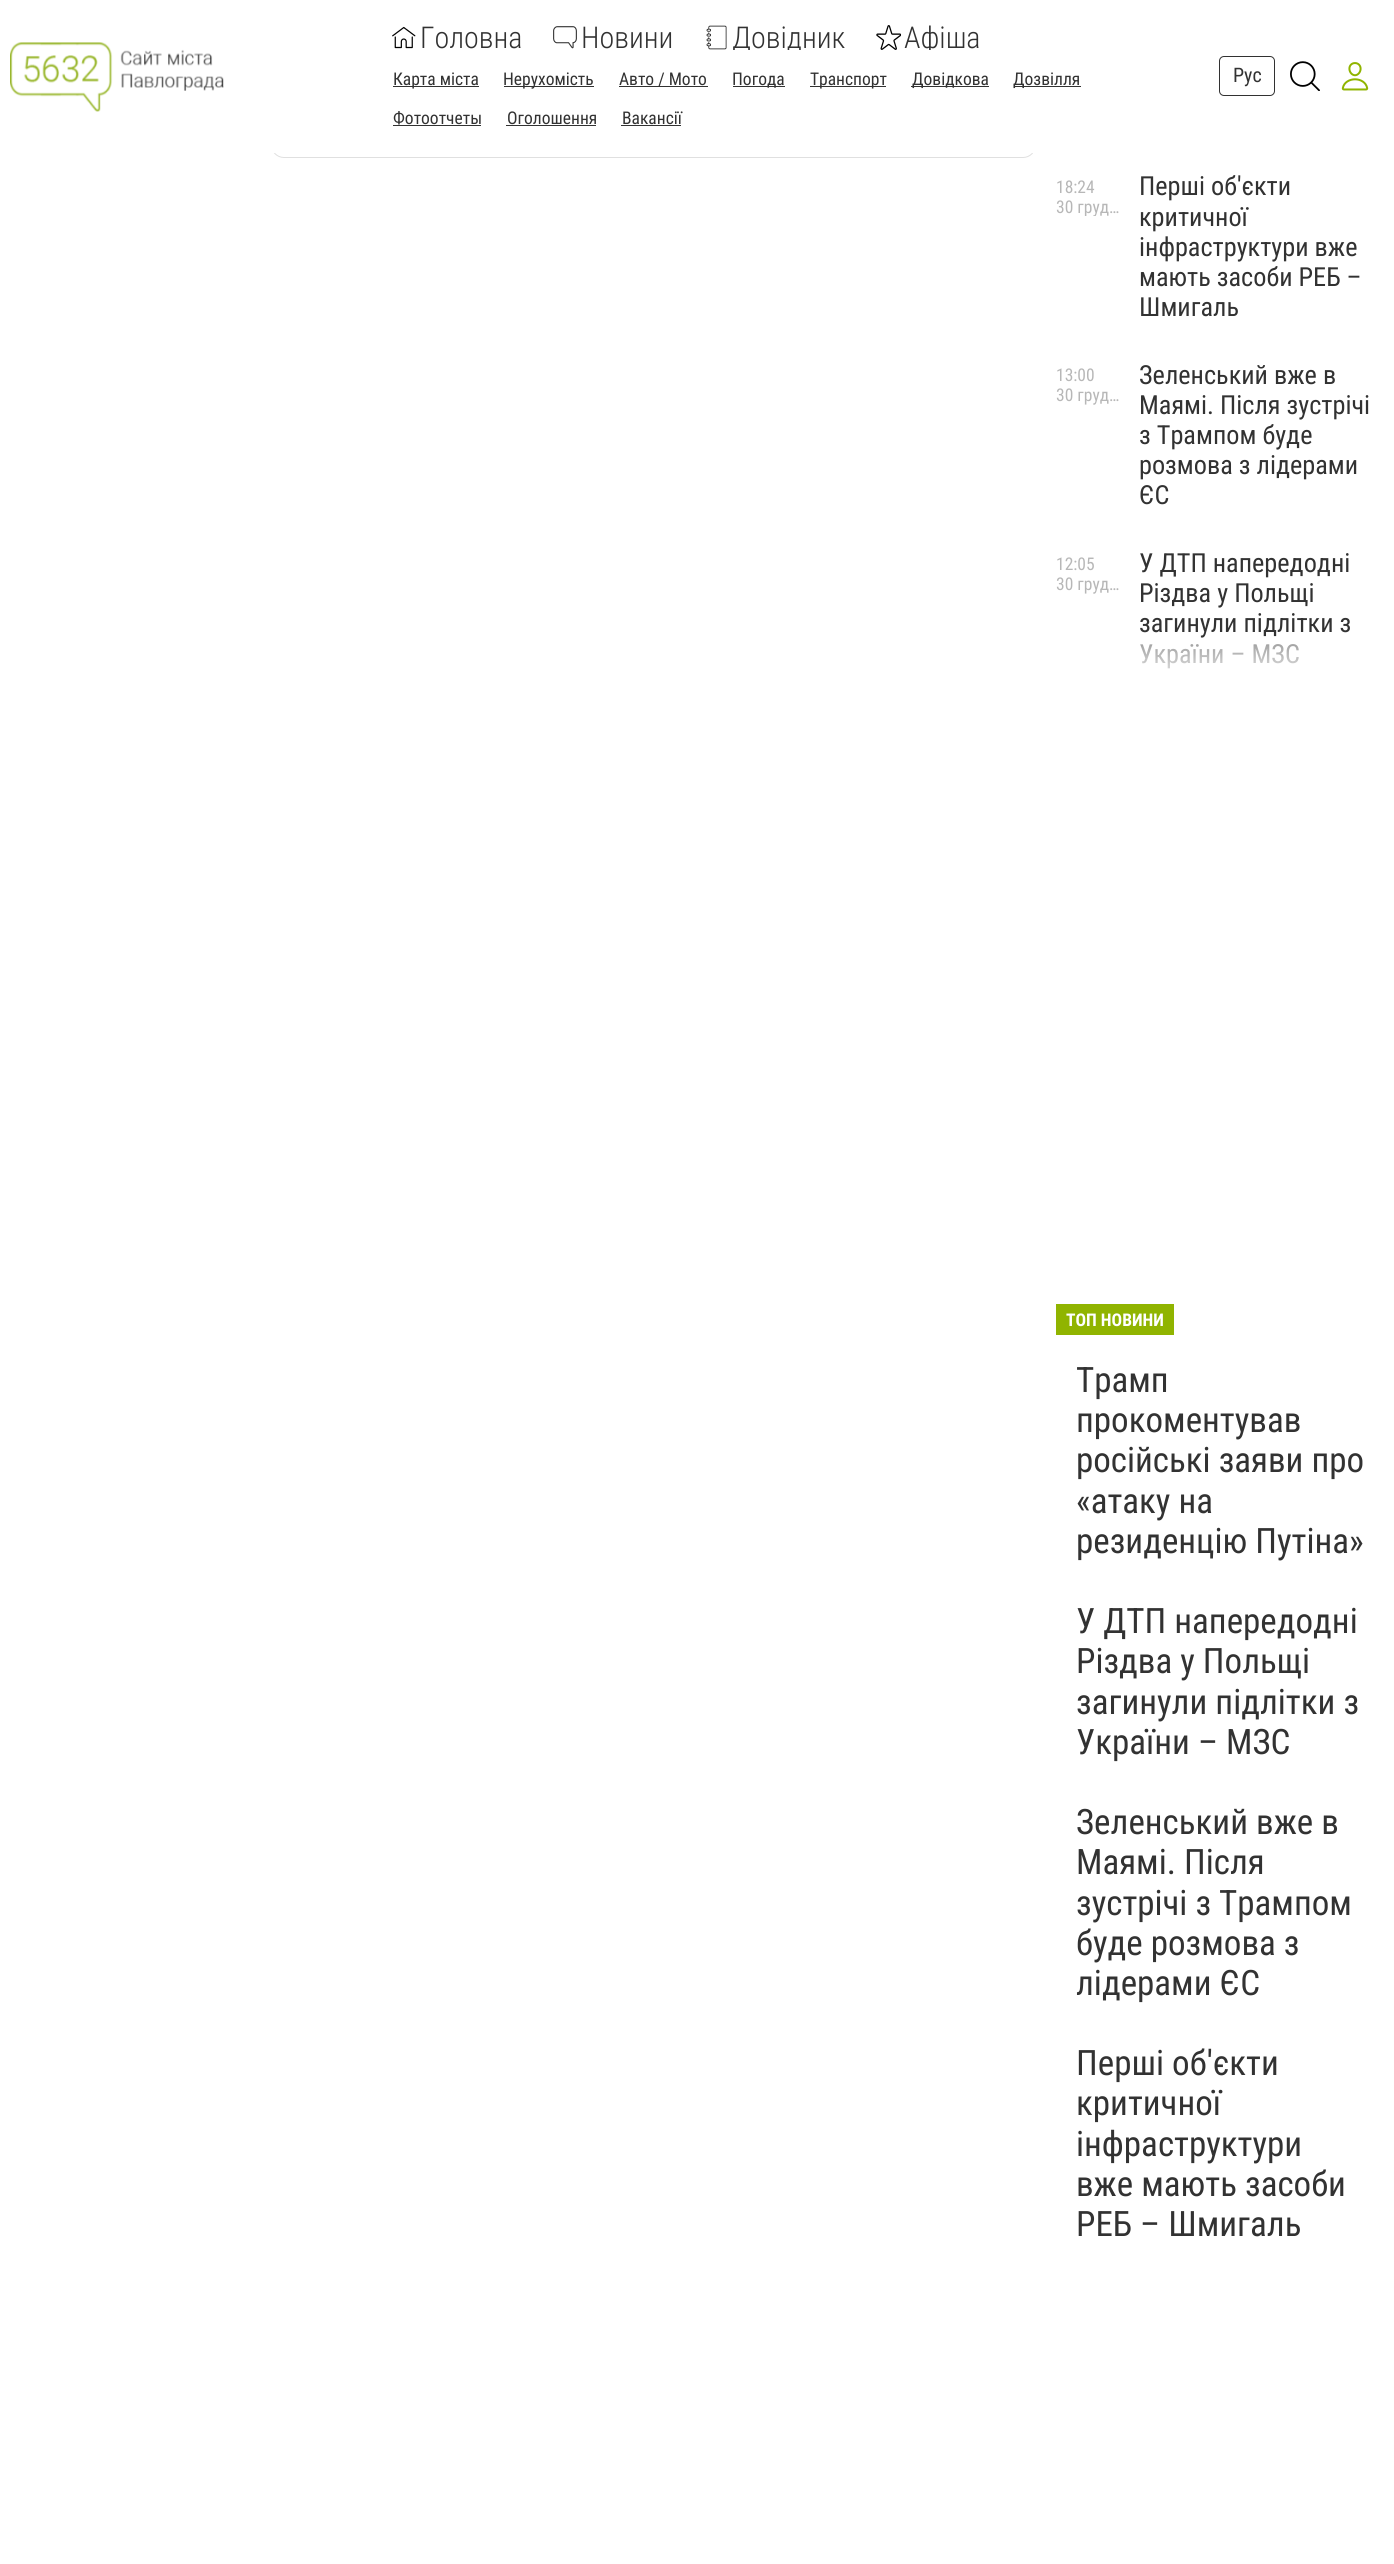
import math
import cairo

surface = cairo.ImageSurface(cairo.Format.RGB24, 1394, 2564)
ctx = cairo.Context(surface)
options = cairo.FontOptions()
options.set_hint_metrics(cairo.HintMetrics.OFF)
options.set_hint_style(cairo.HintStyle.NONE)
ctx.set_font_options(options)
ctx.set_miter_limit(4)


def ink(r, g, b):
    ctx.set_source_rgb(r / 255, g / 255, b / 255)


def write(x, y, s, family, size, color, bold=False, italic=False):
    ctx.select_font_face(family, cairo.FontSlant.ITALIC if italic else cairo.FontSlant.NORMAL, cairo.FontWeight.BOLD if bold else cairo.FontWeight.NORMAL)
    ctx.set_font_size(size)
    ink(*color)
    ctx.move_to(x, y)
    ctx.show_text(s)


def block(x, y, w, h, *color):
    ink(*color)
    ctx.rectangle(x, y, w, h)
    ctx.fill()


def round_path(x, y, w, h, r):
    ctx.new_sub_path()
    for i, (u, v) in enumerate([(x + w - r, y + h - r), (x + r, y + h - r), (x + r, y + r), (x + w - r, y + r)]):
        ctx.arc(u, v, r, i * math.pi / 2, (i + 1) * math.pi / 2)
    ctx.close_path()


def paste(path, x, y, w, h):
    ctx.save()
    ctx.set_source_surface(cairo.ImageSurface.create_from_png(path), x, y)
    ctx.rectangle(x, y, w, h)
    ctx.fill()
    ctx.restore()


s1 = dict(family="Roboto Condensed Light", size=30, color=(50, 50, 50))
s2 = dict(family="Roboto Condensed", size=17.5, color=(50, 50, 50))
s3 = dict(family="Roboto Condensed", size=20, color=(50, 50, 50))
s4 = dict(family="Roboto Condensed", size=17.5, color=(183, 183, 183))
s5 = dict(family="Roboto Condensed", size=26.25, color=(50, 50, 50))
s6 = dict(family="Roboto Condensed", size=26.25, color=(153, 153, 153))
s7 = dict(family="Roboto Condensed", size=17.5, color=(255, 255, 255), bold=True)
s8 = dict(family="Roboto Condensed", size=35, color=(50, 50, 50))

ink(255, 255, 255)
ctx.paint()
round_path(271.5, 58.5, 764, 99, 12.5)
ink(224, 224, 224)
ctx.set_line_width(1)
ctx.stroke()
block(271, 58, 765, 95, 255, 255, 255)
paste("pic1.png", 10, 42, 214, 70)
paste("pic2.png", 392, 26, 24, 23)
write(420, 48, "Головна", **s1)
paste("pic3.png", 553, 26, 24, 23)
write(581, 48, "Новини", **s1)
paste("pic4.png", 706, 25, 21, 25)
ctx.save()
ctx.rectangle(704, 25, 142, 25)
ctx.clip()
write(732, 48, "Довідник", **s1)
ctx.restore()
paste("pic5.png", 876, 25, 25, 25)
ctx.save()
ctx.rectangle(876, 25, 105, 25)
ctx.clip()
write(904, 48, "Афіша", **s1)
ctx.restore()
block(393, 86, 86, 1, 50, 50, 50)
write(393, 85, "Карта міста", **s2)
block(504, 86, 90, 1, 50, 50, 50)
write(503, 85, "Нерухомість", **s2)
block(619, 86, 89, 1, 50, 50, 50)
write(619, 85, "Авто / Мото", **s2)
block(733, 86, 52, 1, 50, 50, 50)
write(732, 85, "Погода", **s2)
block(810, 86, 76, 1, 50, 50, 50)
write(810, 85, "Транспорт", **s2)
block(911, 86, 78, 1, 50, 50, 50)
write(912, 85, "Довідкова", **s2)
block(1014, 86, 67, 1, 50, 50, 50)
write(1013, 85, "Дозвілля", **s2)
write(393, 124, "Фотоотчеты", **s2)
block(393, 125, 88, 1, 50, 50, 50)
write(507, 124, "Оголошення", **s2)
block(506, 125, 90, 1, 50, 50, 50)
write(622, 124, "Вакансії", **s2)
block(621, 125, 60, 1, 50, 50, 50)
round_path(1219.5, 56.5, 55, 39, 4.5)
ctx.stroke()
write(1233, 82, "Рус", **s3)
paste("pic6.png", 1290, 61, 30, 30)
paste("pic7.png", 1341, 62, 28, 29)
write(1056, 193, "18:24", **s4)
ctx.save()
ctx.rectangle(1056, 196, 70, 20)
ctx.clip()
write(1056, 213, "30 груд…", **s4)
ctx.restore()
write(1139, 195, "Перші об'єкти", **s5)
write(1139, 226, "критичної", **s5)
write(1139, 256, "інфраструктури вже", **s5)
write(1139, 286, "мають засоби РЕБ –", **s5)
write(1139, 316, "Шмигаль", **s5)
write(1056, 381, "13:00", **s4)
write(1056, 401, "30 груд…", **s4)
write(1139, 384, "Зеленський вже в", **s5)
write(1139, 414, "Маямі. Після зустрічі", **s5)
write(1139, 444, "з Трампом буде", **s5)
write(1139, 474, "розмова з лідерами", **s5)
write(1139, 504, "ЄС", **s5)
write(1056, 570, "12:05", **s4)
write(1056, 590, "30 груд…", **s4)
write(1139, 572, "У ДТП напередодні", **s5)
write(1139, 602, "Різдва у Польщі", **s5)
write(1139, 632, "загинули підлітки з", **s5)
write(1139, 663, "України – МЗС", **s6)
gradient = cairo.LinearGradient(1221, 714, 1221, 639)
gradient.add_color_stop_rgba(0, 1, 1, 1, 1)
gradient.add_color_stop_rgba(0.33, 1, 1, 1, 0.75)
gradient.add_color_stop_rgba(0.67, 1, 1, 1, 0.5)
gradient.add_color_stop_rgba(1, 1, 1, 1, 0)
ctx.set_source(gradient)
ctx.rectangle(1140, 644, 159, 25)
ctx.fill()
block(1056, 1304, 118, 31, 144, 180, 0)
write(1066, 1326, "ТОП НОВИНИ", **s7)
write(1076, 1392, "Трамп", **s8)
write(1076, 1432, "прокоментував", **s8)
write(1076, 1472, "російські заяви про", **s8)
write(1076, 1513, "«атаку на", **s8)
write(1076, 1553, "резиденцію Путіна»", **s8)
write(1076, 1633, "У ДТП напередодні", **s8)
write(1076, 1673, "Різдва у Польщі", **s8)
write(1076, 1714, "загинули підлітки з", **s8)
write(1076, 1754, "України – МЗС", **s8)
write(1076, 1834, "Зеленський вже в", **s8)
write(1076, 1874, "Маямі. Після", **s8)
write(1076, 1915, "зустрічі з Трампом", **s8)
write(1076, 1955, "буде розмова з", **s8)
write(1076, 1995, "лідерами ЄС", **s8)
write(1076, 2075, "Перші об'єкти", **s8)
write(1076, 2115, "критичної", **s8)
write(1076, 2156, "інфраструктури", **s8)
write(1076, 2196, "вже мають засоби", **s8)
write(1076, 2236, "РЕБ – Шмигаль", **s8)
surface.write_to_png("screenshot.png")
